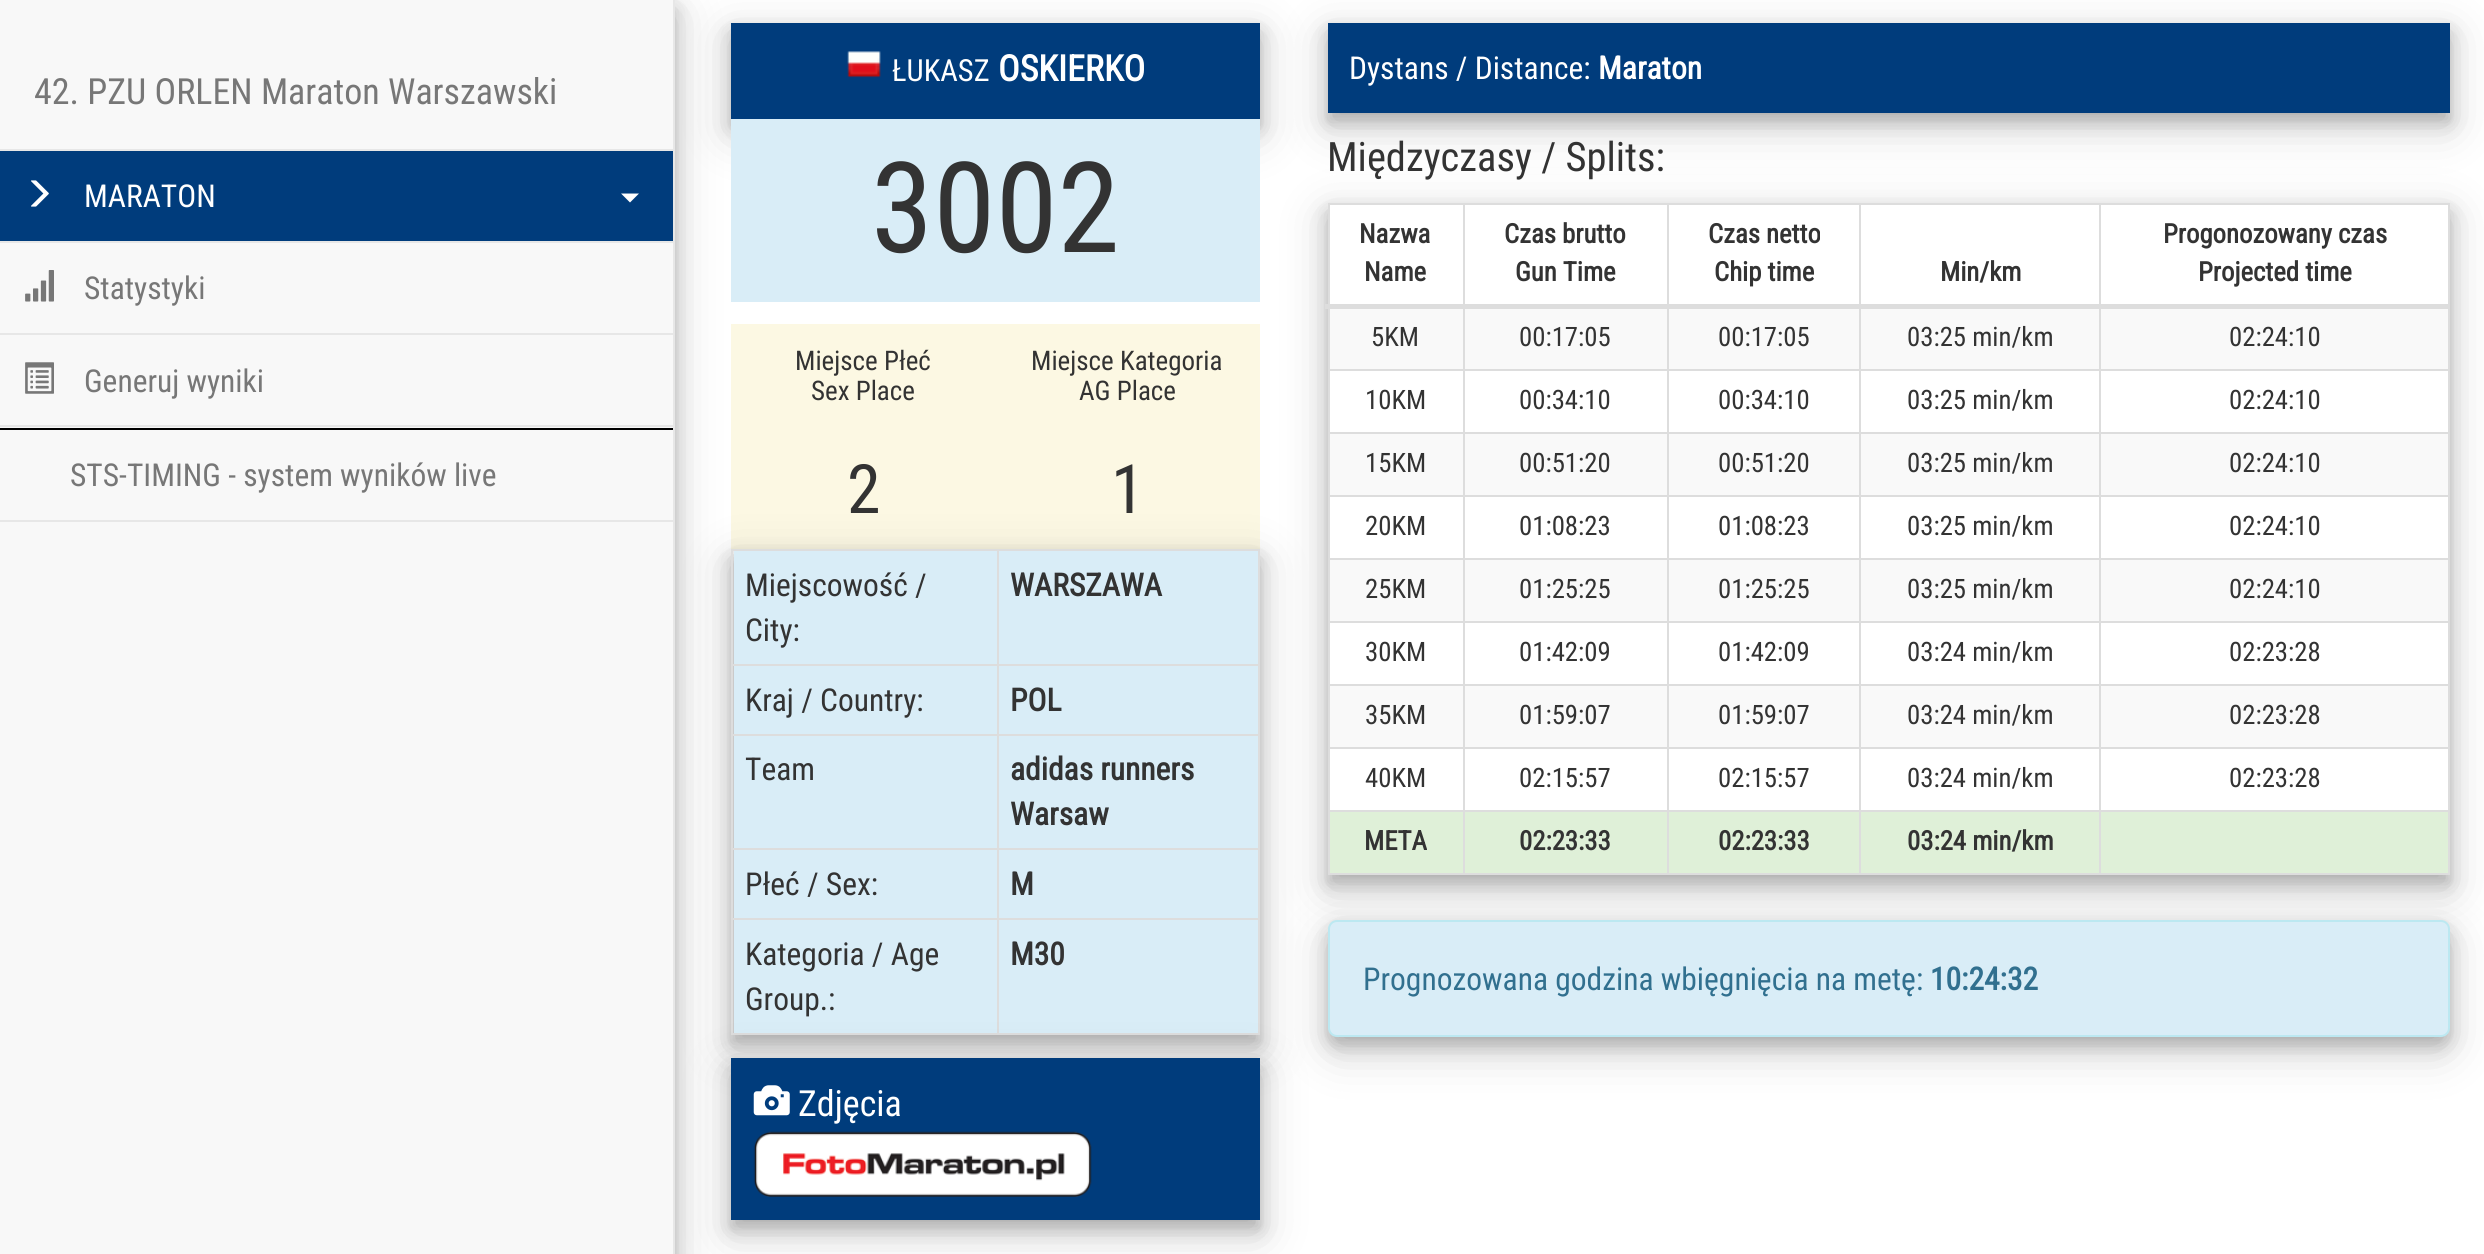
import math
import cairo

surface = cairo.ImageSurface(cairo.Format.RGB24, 2484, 1254)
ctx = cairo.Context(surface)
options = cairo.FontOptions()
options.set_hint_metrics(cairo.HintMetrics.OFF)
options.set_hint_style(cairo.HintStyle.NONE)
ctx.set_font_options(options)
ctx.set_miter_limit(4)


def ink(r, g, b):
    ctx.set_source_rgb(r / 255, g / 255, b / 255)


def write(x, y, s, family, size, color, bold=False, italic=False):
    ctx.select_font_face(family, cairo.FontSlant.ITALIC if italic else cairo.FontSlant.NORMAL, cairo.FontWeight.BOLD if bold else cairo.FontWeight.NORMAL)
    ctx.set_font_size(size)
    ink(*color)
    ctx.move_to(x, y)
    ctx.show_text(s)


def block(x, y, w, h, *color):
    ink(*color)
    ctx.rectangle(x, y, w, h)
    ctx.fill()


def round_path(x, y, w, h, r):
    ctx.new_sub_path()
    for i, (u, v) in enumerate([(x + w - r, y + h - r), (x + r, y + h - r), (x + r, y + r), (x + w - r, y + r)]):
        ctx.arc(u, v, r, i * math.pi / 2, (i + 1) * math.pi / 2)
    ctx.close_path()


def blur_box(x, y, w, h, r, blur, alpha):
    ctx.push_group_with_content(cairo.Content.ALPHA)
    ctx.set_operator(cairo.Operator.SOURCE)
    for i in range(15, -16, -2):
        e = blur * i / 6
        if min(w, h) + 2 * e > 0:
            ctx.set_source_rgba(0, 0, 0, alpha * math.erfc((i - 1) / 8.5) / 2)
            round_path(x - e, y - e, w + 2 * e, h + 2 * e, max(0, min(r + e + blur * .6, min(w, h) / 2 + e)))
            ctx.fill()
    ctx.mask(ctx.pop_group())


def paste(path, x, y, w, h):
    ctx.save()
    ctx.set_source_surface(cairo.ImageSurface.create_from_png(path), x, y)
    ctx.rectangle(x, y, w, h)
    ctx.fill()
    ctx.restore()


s1 = dict(family="Roboto Condensed", size=36, color=(119, 119, 119))
s2 = dict(family="Roboto Condensed", size=31.5, color=(255, 255, 255))
s3 = dict(family="Roboto Condensed", size=31.5, color=(119, 119, 119))
s4 = dict(family="Roboto Condensed", size=30.5, color=(255, 255, 255))
s5 = dict(family="Roboto Condensed", size=36, color=(255, 255, 255), bold=True)
s6 = dict(family="Roboto Condensed", size=126, color=(51, 51, 51))
s7 = dict(family="Roboto Condensed", size=27, color=(51, 51, 51))
s8 = dict(family="Roboto Condensed", size=68, color=(51, 51, 51))
s9 = dict(family="Roboto Condensed", size=31.5, color=(51, 51, 51))
s10 = dict(family="Roboto Condensed", size=31.5, color=(51, 51, 51), bold=True)
s11 = dict(family="Roboto Condensed", size=36, color=(255, 255, 255))
s12 = dict(family="Roboto Condensed", size=31.5, color=(255, 255, 255), bold=True)
s13 = dict(family="Roboto Condensed", size=40.5, color=(51, 51, 51))
s14 = dict(family="Roboto Condensed", size=26.75, color=(51, 51, 51), bold=True)
s15 = dict(family="Roboto Condensed", size=26.75, color=(51, 51, 51))
s16 = dict(family="Roboto Condensed", size=31.5, color=(49, 112, 143))
s17 = dict(family="Roboto Condensed", size=31.5, color=(49, 112, 143), bold=True)

ink(255, 255, 255)
ctx.paint()
ink(0, 0, 0)
blur_box(731, 36, 529, 97, 0, 22.5, 0.19)
blur_box(731, 32, 529, 96, 0, 9, 0.2)
block(731, 23, 529, 96, 0, 60, 124)
block(731, 119, 529, 183, 217, 237, 247)
block(731, 324, 529, 225, 252, 248, 227)
ink(0, 0, 0)
blur_box(731, 563, 529, 486, 0, 22.5, 0.19)
blur_box(731, 558, 529, 486, 0, 9, 0.2)
block(731, 549, 529, 2, 221, 221, 221)
block(1258, 549, 2, 486, 221, 221, 221)
block(731, 1033, 529, 2, 221, 221, 221)
block(731, 549, 2, 486, 221, 221, 221)
block(734, 551, 263, 113, 217, 237, 247)
block(734, 666, 263, 68, 217, 237, 247)
block(997, 664, 263, 2, 221, 221, 221)
block(997, 734, 263, 2, 221, 221, 221)
block(997, 848, 263, 2, 221, 221, 221)
block(997, 918, 263, 2, 221, 221, 221)
block(997, 918, 2, 117, 221, 221, 221)
block(731, 918, 268, 2, 221, 221, 221)
block(997, 848, 2, 72, 221, 221, 221)
block(731, 848, 268, 2, 221, 221, 221)
block(997, 734, 2, 117, 221, 221, 221)
block(731, 734, 268, 2, 221, 221, 221)
block(997, 664, 2, 72, 221, 221, 221)
block(731, 664, 268, 2, 221, 221, 221)
block(734, 736, 263, 112, 217, 237, 247)
block(734, 850, 263, 68, 217, 237, 247)
block(734, 920, 263, 113, 217, 237, 247)
block(999, 920, 259, 113, 217, 237, 247)
ink(0, 0, 0)
blur_box(731, 1071, 529, 162, 0, 22.5, 0.19)
blur_box(731, 1067, 529, 162, 0, 9, 0.2)
block(731, 1058, 529, 162, 0, 60, 124)
ink(0, 0, 0)
blur_box(0, 14, 675, 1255, 0, 22.5, 0.19)
blur_box(0, 9, 675, 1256, 0, 9, 0.2)
block(0, 0, 673, 1254, 248, 248, 248)
block(673, 0, 2, 1254, 231, 231, 231)
block(0, 149, 673, 2, 231, 231, 231)
write(34, 104, "42. PZU ORLEN Maraton Warszawski", **s1)
block(0, 151, 673, 90, 0, 60, 124)
block(0, 241, 673, 2, 231, 231, 231)
paste("pic1.png", 31, 180, 18, 27)
write(84, 207, "MARATON", **s2)
ctx.new_path()
ctx.move_to(621, 193.5)
ctx.line_to(639, 193.5)
ctx.line_to(630, 202.5)
ctx.close_path()
ctx.fill()
block(0, 333, 673, 2, 231, 231, 231)
paste("pic2.png", 25, 270, 29, 32)
write(84, 299, "Statystyki", **s3)
block(0, 425, 673, 2, 231, 231, 231)
paste("pic3.png", 25, 362, 29, 32)
write(84, 392, "Generuj wyniki", **s3)
block(0, 428, 673, 2, 0, 0, 0)
block(0, 520, 673, 2, 231, 231, 231)
write(70, 486, "STS-TIMING - system wyników live", **s3)
paste("pic4.png", 847, 51, 34, 27)
write(892, 81, "ŁUKASZ", **s4)
write(998, 81, "OSKIERKO", **s5)
write(871, 252, "3002", **s6)
write(795, 370, "Miejsce Płeć", **s7)
write(811, 400, "Sex Place", **s7)
write(847, 513, "2", **s8)
write(1031, 370, "Miejsce Kategoria", **s7)
write(1079, 400, "AG Place", **s7)
write(1111, 513, "1", **s8)
write(745, 596, "Miejscowość /", **s9)
write(745, 641, "City:", **s9)
block(999, 551, 259, 113, 217, 237, 247)
block(997, 549, 2, 117, 221, 221, 221)
write(1010, 596, "WARSZAWA", **s10)
write(745, 711, "Kraj / Country:", **s9)
block(999, 666, 259, 68, 217, 237, 247)
write(1010, 711, "POL", **s10)
write(745, 780, "Team", **s9)
block(999, 736, 259, 112, 217, 237, 247)
write(1010, 780, "adidas runners", **s10)
write(1010, 825, "Warsaw", **s10)
write(745, 895, "Płeć / Sex:", **s9)
block(999, 850, 259, 68, 217, 237, 247)
write(1010, 895, "M", **s10)
write(745, 965, "Kategoria / Age", **s9)
write(745, 1010, "Group.:", **s9)
write(1010, 965, "M30", **s10)
paste("pic5.png", 753, 1085, 37, 31)
write(798, 1116, "Zdjęcia", **s11)
paste("pic6.png", 753, 1131, 339, 66)
ink(0, 0, 0)
blur_box(1328, 36, 1122, 90, 0, 22.5, 0.19)
blur_box(1328, 32, 1122, 90, 0, 9, 0.2)
block(1328, 23, 1122, 90, 0, 60, 124)
write(1349, 79, "Dystans / Distance:", **s2)
write(1598, 79, "Maraton", **s12)
ctx.save()
ctx.set_fill_rule(cairo.FillRule.EVEN_ODD)
ctx.new_path()
ctx.move_to(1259, 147)
ctx.line_to(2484, 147)
ctx.line_to(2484, 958)
ctx.line_to(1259, 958)
ctx.close_path()
ctx.move_to(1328, 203)
ctx.line_to(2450, 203)
ctx.line_to(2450, 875)
ctx.line_to(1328, 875)
ctx.close_path()
ctx.clip()
ink(0, 0, 0)
blur_box(1328, 216, 1122, 673, 0, 22.5, 0.19)
ctx.restore()
write(1327, 171, "Międzyczasy / Splits:", **s13)
ctx.save()
ctx.set_fill_rule(cairo.FillRule.EVEN_ODD)
ctx.new_path()
ctx.move_to(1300, 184)
ctx.line_to(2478, 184)
ctx.line_to(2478, 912)
ctx.line_to(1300, 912)
ctx.close_path()
ctx.move_to(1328, 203)
ctx.line_to(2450, 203)
ctx.line_to(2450, 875)
ctx.line_to(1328, 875)
ctx.close_path()
ctx.clip()
ink(0, 0, 0)
blur_box(1328, 212, 1122, 672, 0, 9, 0.2)
ctx.restore()
block(1328, 203, 1122, 2, 221, 221, 221)
block(2448, 203, 2, 672, 221, 221, 221)
block(1328, 873, 1122, 2, 221, 221, 221)
block(1328, 203, 2, 672, 221, 221, 221)
write(1359, 243, "Nazwa", **s14)
write(1364, 281, "Name", **s14)
write(1504, 243, "Czas brutto", **s14)
write(1515, 281, "Gun Time", **s14)
write(1708, 243, "Czas netto", **s14)
write(1714, 281, "Chip time", **s14)
write(1940, 281, "Min/km", **s14)
block(1330, 309, 1118, 60, 249, 249, 249)
block(2099, 369, 351, 2, 221, 221, 221)
block(2099, 432, 351, 2, 221, 221, 221)
block(1330, 434, 1118, 61, 249, 249, 249)
block(2099, 495, 351, 2, 221, 221, 221)
block(2099, 558, 351, 2, 221, 221, 221)
block(1330, 560, 1118, 61, 249, 249, 249)
block(2099, 621, 351, 2, 221, 221, 221)
block(2099, 684, 351, 2, 221, 221, 221)
block(1330, 686, 1118, 61, 249, 249, 249)
block(2099, 747, 351, 2, 221, 221, 221)
block(2099, 810, 351, 2, 221, 221, 221)
block(1861, 812, 587, 61, 223, 240, 216)
block(2099, 810, 2, 65, 221, 221, 221)
block(1859, 810, 243, 2, 221, 221, 221)
block(2099, 747, 2, 65, 221, 221, 221)
block(1859, 747, 243, 2, 221, 221, 221)
block(2099, 684, 2, 65, 221, 221, 221)
block(1859, 684, 243, 2, 221, 221, 221)
block(2099, 621, 2, 65, 221, 221, 221)
block(1859, 621, 243, 2, 221, 221, 221)
block(2099, 558, 2, 65, 221, 221, 221)
block(1859, 558, 243, 2, 221, 221, 221)
block(2099, 495, 2, 65, 221, 221, 221)
block(1859, 495, 243, 2, 221, 221, 221)
block(2099, 432, 2, 65, 221, 221, 221)
block(1859, 432, 243, 2, 221, 221, 221)
block(2099, 369, 2, 65, 221, 221, 221)
block(1859, 369, 243, 2, 221, 221, 221)
block(1859, 810, 2, 65, 221, 221, 221)
block(1667, 810, 194, 2, 221, 221, 221)
block(1859, 747, 2, 65, 221, 221, 221)
block(1667, 747, 194, 2, 221, 221, 221)
block(1859, 684, 2, 65, 221, 221, 221)
block(1667, 684, 194, 2, 221, 221, 221)
block(1859, 621, 2, 65, 221, 221, 221)
block(1667, 621, 194, 2, 221, 221, 221)
block(1859, 558, 2, 65, 221, 221, 221)
block(1667, 558, 194, 2, 221, 221, 221)
block(1859, 495, 2, 65, 221, 221, 221)
block(1667, 495, 194, 2, 221, 221, 221)
block(1859, 432, 2, 65, 221, 221, 221)
block(1667, 432, 194, 2, 221, 221, 221)
block(1859, 369, 2, 65, 221, 221, 221)
block(1667, 369, 194, 2, 221, 221, 221)
block(1667, 810, 2, 65, 221, 221, 221)
block(1463, 810, 207, 2, 221, 221, 221)
block(1667, 747, 2, 65, 221, 221, 221)
block(1463, 747, 207, 2, 221, 221, 221)
block(1667, 684, 2, 65, 221, 221, 221)
block(1463, 684, 207, 2, 221, 221, 221)
block(1667, 621, 2, 65, 221, 221, 221)
block(1463, 621, 207, 2, 221, 221, 221)
block(1667, 558, 2, 65, 221, 221, 221)
block(1463, 558, 207, 2, 221, 221, 221)
block(1667, 495, 2, 65, 221, 221, 221)
block(1463, 495, 207, 2, 221, 221, 221)
block(1667, 432, 2, 65, 221, 221, 221)
block(1463, 432, 207, 2, 221, 221, 221)
block(1667, 369, 2, 65, 221, 221, 221)
block(1463, 369, 207, 2, 221, 221, 221)
block(1463, 810, 2, 65, 221, 221, 221)
block(1328, 810, 137, 2, 221, 221, 221)
block(1463, 747, 2, 65, 221, 221, 221)
block(1328, 747, 137, 2, 221, 221, 221)
block(1463, 684, 2, 65, 221, 221, 221)
block(1328, 684, 137, 2, 221, 221, 221)
block(1463, 621, 2, 65, 221, 221, 221)
block(1328, 621, 137, 2, 221, 221, 221)
block(1463, 558, 2, 65, 221, 221, 221)
block(1328, 558, 137, 2, 221, 221, 221)
block(1463, 495, 2, 65, 221, 221, 221)
block(1328, 495, 137, 2, 221, 221, 221)
block(1463, 432, 2, 65, 221, 221, 221)
block(1328, 432, 137, 2, 221, 221, 221)
block(1463, 369, 2, 65, 221, 221, 221)
block(1328, 369, 137, 2, 221, 221, 221)
block(1463, 203, 2, 168, 221, 221, 221)
block(1667, 203, 2, 168, 221, 221, 221)
block(1859, 203, 2, 168, 221, 221, 221)
block(2099, 203, 2, 168, 221, 221, 221)
block(1325, 304, 1125, 5, 221, 221, 221)
write(2163, 243, "Progonozowany czas", **s14)
write(2198, 281, "Projected time", **s14)
write(1371, 346, "5KM", **s15)
write(1519, 346, "00:17:05", **s15)
write(1718, 346, "00:17:05", **s15)
write(1907, 346, "03:25 min/km", **s15)
write(2229, 346, "02:24:10", **s15)
write(1365, 409, "10KM", **s15)
write(1519, 409, "00:34:10", **s15)
write(1718, 409, "00:34:10", **s15)
write(1907, 409, "03:25 min/km", **s15)
write(2229, 409, "02:24:10", **s15)
write(1365, 472, "15KM", **s15)
write(1519, 472, "00:51:20", **s15)
write(1718, 472, "00:51:20", **s15)
write(1907, 472, "03:25 min/km", **s15)
write(2229, 472, "02:24:10", **s15)
write(1365, 535, "20KM", **s15)
write(1519, 535, "01:08:23", **s15)
write(1718, 535, "01:08:23", **s15)
write(1907, 535, "03:25 min/km", **s15)
write(2229, 535, "02:24:10", **s15)
write(1365, 598, "25KM", **s15)
write(1519, 598, "01:25:25", **s15)
write(1718, 598, "01:25:25", **s15)
write(1907, 598, "03:25 min/km", **s15)
write(2229, 598, "02:24:10", **s15)
write(1365, 661, "30KM", **s15)
write(1519, 661, "01:42:09", **s15)
write(1718, 661, "01:42:09", **s15)
write(1907, 661, "03:24 min/km", **s15)
write(2229, 661, "02:23:28", **s15)
write(1365, 724, "35KM", **s15)
write(1519, 724, "01:59:07", **s15)
write(1718, 724, "01:59:07", **s15)
write(1907, 724, "03:24 min/km", **s15)
write(2229, 724, "02:23:28", **s15)
write(1365, 787, "40KM", **s15)
write(1519, 787, "02:15:57", **s15)
write(1718, 787, "02:15:57", **s15)
write(1907, 787, "03:24 min/km", **s15)
write(2229, 787, "02:23:28", **s15)
block(1330, 812, 133, 61, 223, 240, 216)
write(1364, 850, "META", **s14)
block(1465, 812, 202, 61, 223, 240, 216)
write(1519, 850, "02:23:33", **s14)
block(1669, 812, 190, 61, 223, 240, 216)
write(1718, 850, "02:23:33", **s14)
write(1907, 850, "03:24 min/km", **s14)
ink(0, 0, 0)
blur_box(1328, 934, 1122, 117, 9, 22.5, 0.19)
blur_box(1328, 929, 1122, 117, 9, 9, 0.2)
ink(217, 237, 247)
round_path(1329, 921, 1120, 115, 8)
ctx.fill_preserve()
ink(188, 232, 241)
ctx.stroke()
write(1363, 990, "Prognozowana godzina wbięgnięcia na metę:", **s16)
write(1930, 990, "10:24:32", **s17)
surface.write_to_png("screenshot.png")
